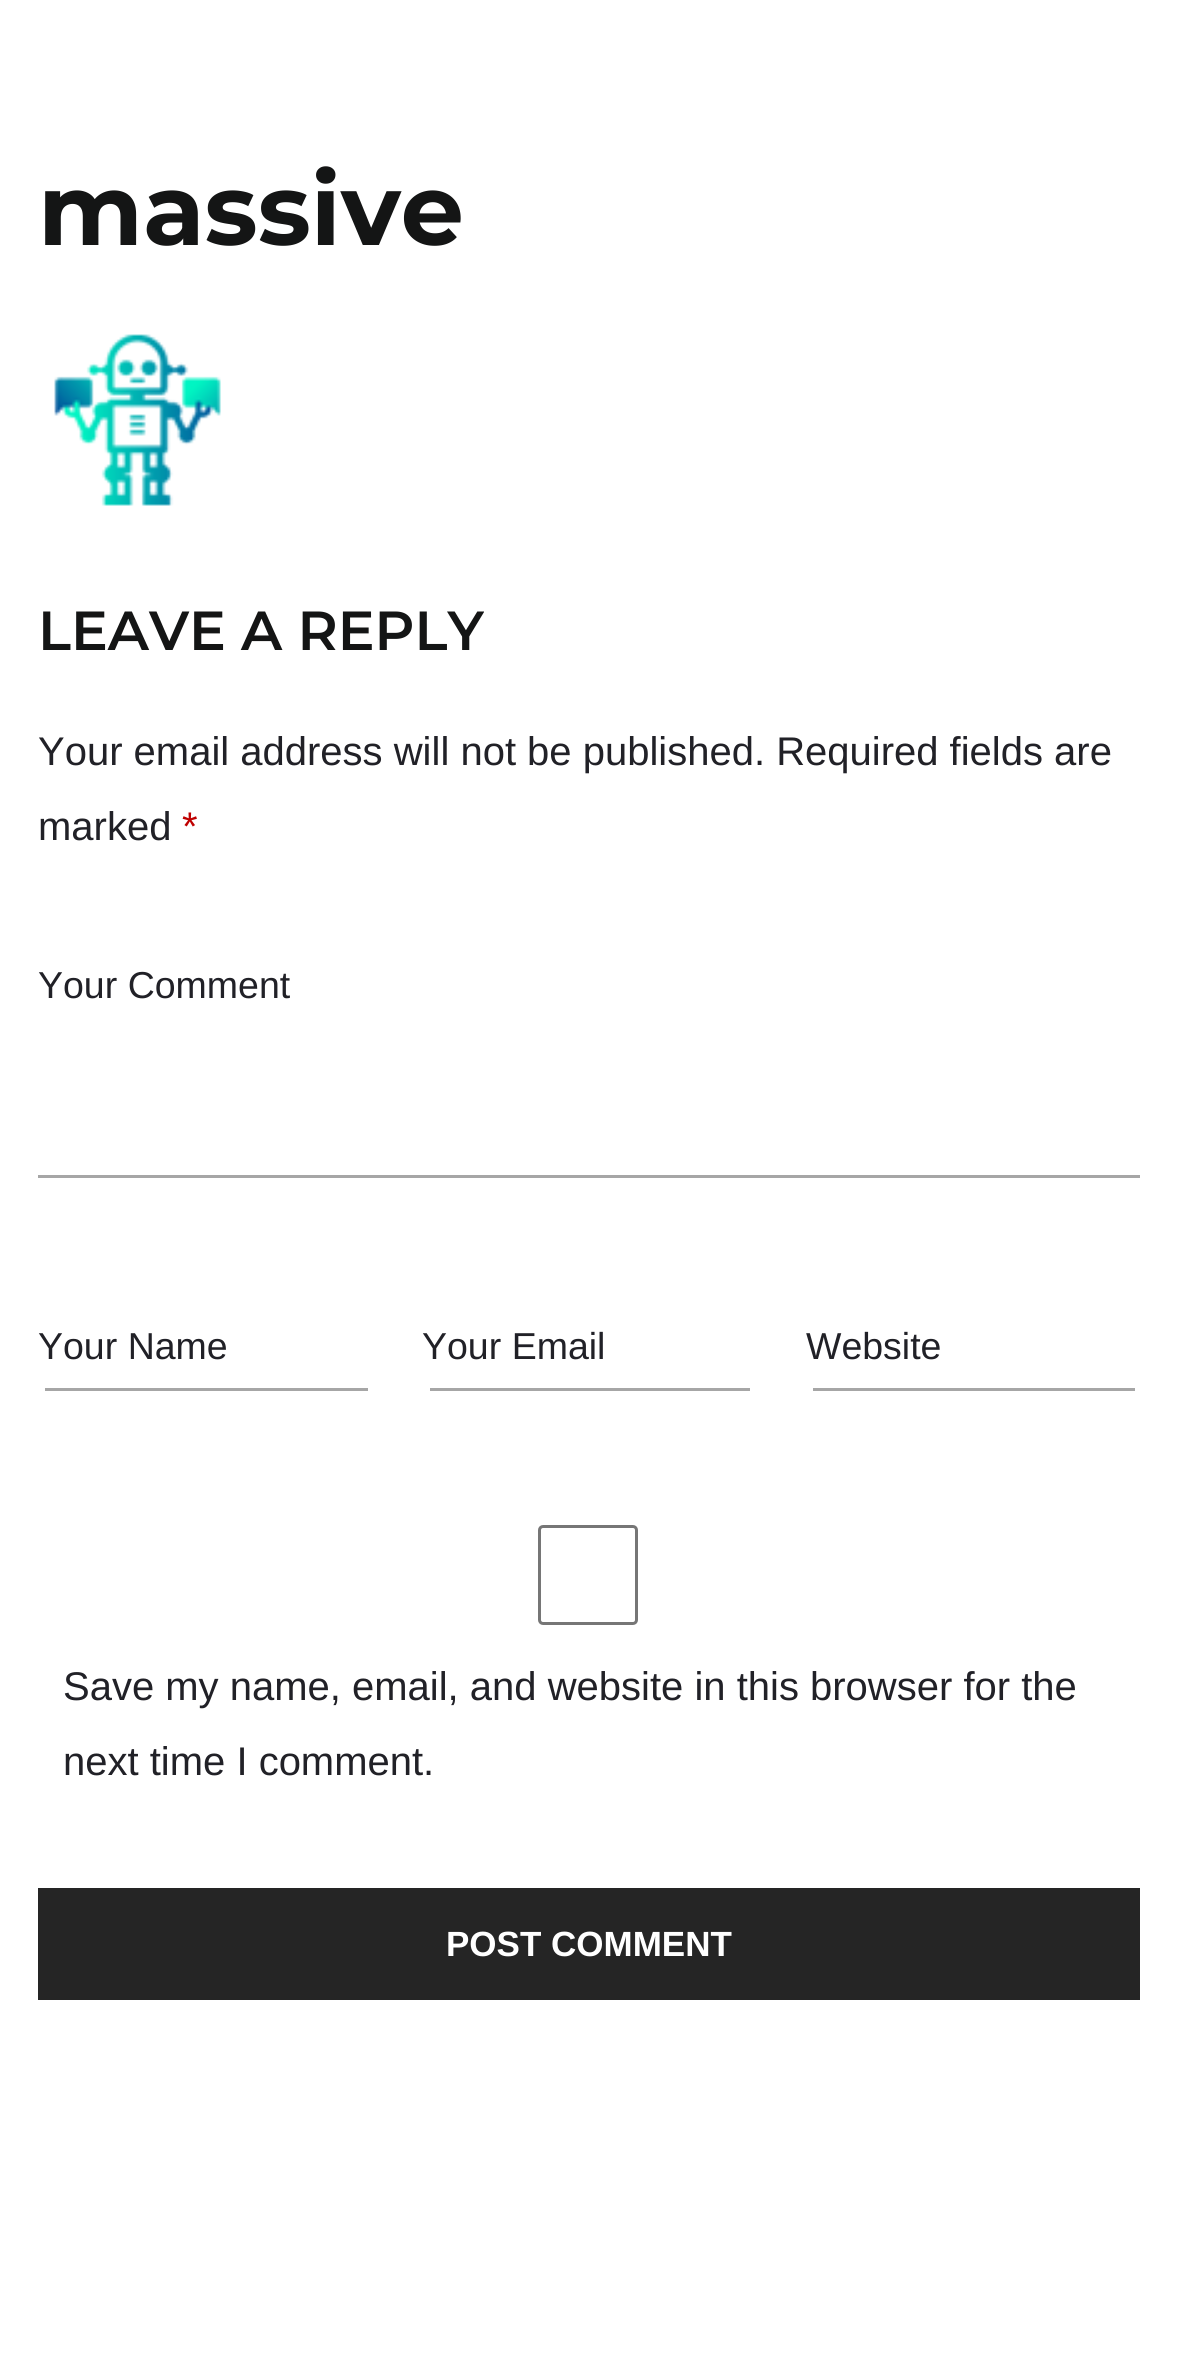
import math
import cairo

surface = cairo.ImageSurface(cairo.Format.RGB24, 1177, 2364)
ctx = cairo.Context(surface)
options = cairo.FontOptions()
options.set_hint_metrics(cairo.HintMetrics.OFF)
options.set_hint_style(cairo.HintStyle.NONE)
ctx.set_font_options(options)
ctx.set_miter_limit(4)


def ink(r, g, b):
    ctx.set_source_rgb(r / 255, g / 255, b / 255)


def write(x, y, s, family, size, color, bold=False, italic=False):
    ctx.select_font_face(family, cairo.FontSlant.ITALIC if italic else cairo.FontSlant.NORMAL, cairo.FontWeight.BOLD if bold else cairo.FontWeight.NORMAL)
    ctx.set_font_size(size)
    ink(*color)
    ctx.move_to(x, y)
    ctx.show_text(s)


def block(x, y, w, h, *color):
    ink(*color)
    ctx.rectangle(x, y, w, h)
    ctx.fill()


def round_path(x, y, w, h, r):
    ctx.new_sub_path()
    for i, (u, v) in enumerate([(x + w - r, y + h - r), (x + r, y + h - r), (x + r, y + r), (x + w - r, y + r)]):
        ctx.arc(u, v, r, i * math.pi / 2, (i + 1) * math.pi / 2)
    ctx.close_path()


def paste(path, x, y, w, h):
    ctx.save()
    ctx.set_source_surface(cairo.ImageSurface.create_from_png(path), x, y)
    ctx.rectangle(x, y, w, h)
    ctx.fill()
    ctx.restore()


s1 = dict(family="Montserrat", size=100, color=(20, 21, 21), bold=True)
s2 = dict(family="Montserrat SemiBold", size=55, color=(20, 21, 21))
s3 = dict(family="Liberation Sans", size=40, color=(33, 33, 39))
s4 = dict(family="Liberation Sans", size=40, color=(191, 0, 0))
s5 = dict(family="Liberation Sans", size=37.5, color=(33, 33, 39))
s6 = dict(family="Liberation Sans", size=35, color=(255, 255, 255), bold=True)

ink(255, 255, 255)
ctx.paint()
write(38, 245, "massive", **s1)
paste("pic1.png", 54, 334, 167, 172)
write(38, 650, "LEAVE A REPLY", **s2)
write(38, 765, "Your email address will not be published. Required fields are", **s3)
write(38, 840, "marked", **s3)
write(182, 840, "*", **s4)
block(38, 1175, 1102, 3, 166, 166, 166)
write(38, 998, "Your Comment", **s5)
block(45, 1388, 323, 3, 166, 166, 166)
write(38, 1359, "Your Name", **s5)
block(430, 1388, 320, 3, 166, 166, 166)
write(422, 1359, "Your Email", **s5)
block(813, 1388, 322, 3, 166, 166, 166)
write(806, 1359, "Website", **s5)
round_path(539.5, 1526.5, 97, 97, 3.5)
ink(118, 118, 118)
ctx.set_line_width(3)
ctx.stroke()
write(63, 1700, "Save my name, email, and website in this browser for the", **s3)
write(63, 1775, "next time I comment.", **s3)
block(38, 1888, 1102, 112, 37, 37, 37)
write(446, 1956, "POST COMMENT", **s6)
surface.write_to_png("screenshot.png")
